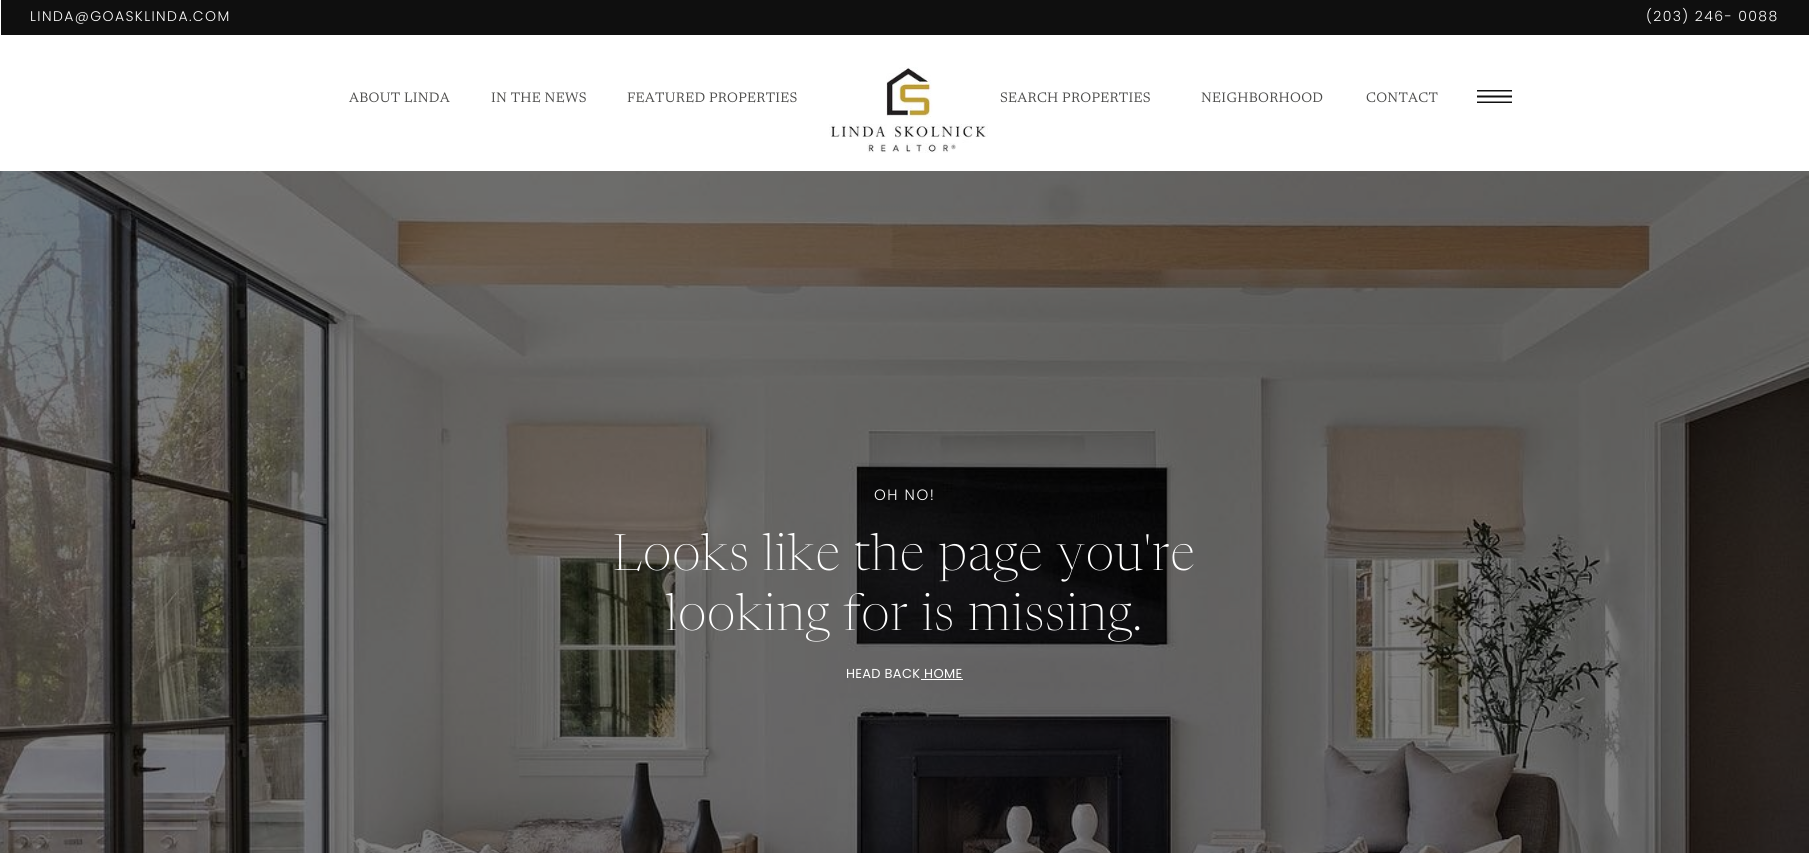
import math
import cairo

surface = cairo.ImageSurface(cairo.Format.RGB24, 1809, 853)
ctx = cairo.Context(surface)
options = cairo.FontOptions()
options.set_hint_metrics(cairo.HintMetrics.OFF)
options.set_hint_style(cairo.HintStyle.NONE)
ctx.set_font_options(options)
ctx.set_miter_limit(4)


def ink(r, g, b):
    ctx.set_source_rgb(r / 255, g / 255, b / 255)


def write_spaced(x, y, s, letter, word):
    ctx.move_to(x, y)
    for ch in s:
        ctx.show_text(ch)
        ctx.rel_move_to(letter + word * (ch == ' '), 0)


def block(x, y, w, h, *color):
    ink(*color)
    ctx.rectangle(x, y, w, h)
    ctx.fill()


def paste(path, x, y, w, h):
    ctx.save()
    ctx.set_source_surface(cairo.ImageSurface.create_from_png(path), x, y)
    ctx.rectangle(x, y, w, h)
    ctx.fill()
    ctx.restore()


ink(255, 255, 255)
ctx.paint()
block(1, 0, 1808, 35, 15, 15, 15)
ctx.select_font_face("Poppins Light")
ctx.set_font_size(14)
ink(255, 255, 255)
write_spaced(30, 21, "LINDA@GOASKLINDA.COM", 1.4, 0)
write_spaced(1646, 21, "(203) 246- 0088", 1.4, 0)
ctx.select_font_face("Newsreader")
ink(76, 76, 75)
write_spaced(349, 102, "ABOUT LINDA", 0.3, 0)
write_spaced(491, 102, "IN THE NEWS", 0.3, 0)
write_spaced(627, 102, "FEATURED PROPERTIES", 0.3, 0)
paste("pic1.png", 829, 67, 159, 86)
write_spaced(1000, 102, "SEARCH PROPERTIES", 0.3, 0)
write_spaced(1201, 102, "NEIGHBORHOOD", 0.3, 0)
write_spaced(1366, 102, "CONTACT", 0.3, 0)
ink(15, 15, 15)
ctx.new_path()
ctx.move_to(1477, 101.5)
ctx.line_to(1512, 101.5)
ctx.line_to(1512, 103)
ctx.line_to(1477, 103)
ctx.close_path()
ctx.move_to(1477, 95.5)
ctx.line_to(1512, 95.5)
ctx.line_to(1512, 97.5)
ctx.line_to(1477, 97.5)
ctx.close_path()
ctx.move_to(1477, 90)
ctx.line_to(1512, 90)
ctx.line_to(1512, 91.5)
ctx.line_to(1477, 91.5)
ctx.close_path()
ctx.fill()
block(0, 171, 1809, 682, 0, 0, 0)
paste("pic2.png", 0, 171, 1809, 682)
ctx.select_font_face("Poppins Light")
ctx.set_font_size(15)
ink(255, 255, 255)
write_spaced(874, 500, "OH NO!", 1.5, 0)
ctx.select_font_face("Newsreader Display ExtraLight")
ctx.set_font_size(50)
write_spaced(613, 570, "Looks like the page you're", 1.25, 0)
write_spaced(666, 630, "looking for is missing.", 1.25, 0)
ctx.select_font_face("Poppins")
ctx.set_font_size(13)
write_spaced(846, 678, "HEAD BACK HOME", 0.3, 0)
block(921, 679, 42, 1, 255, 255, 255)
surface.write_to_png("screenshot.png")
